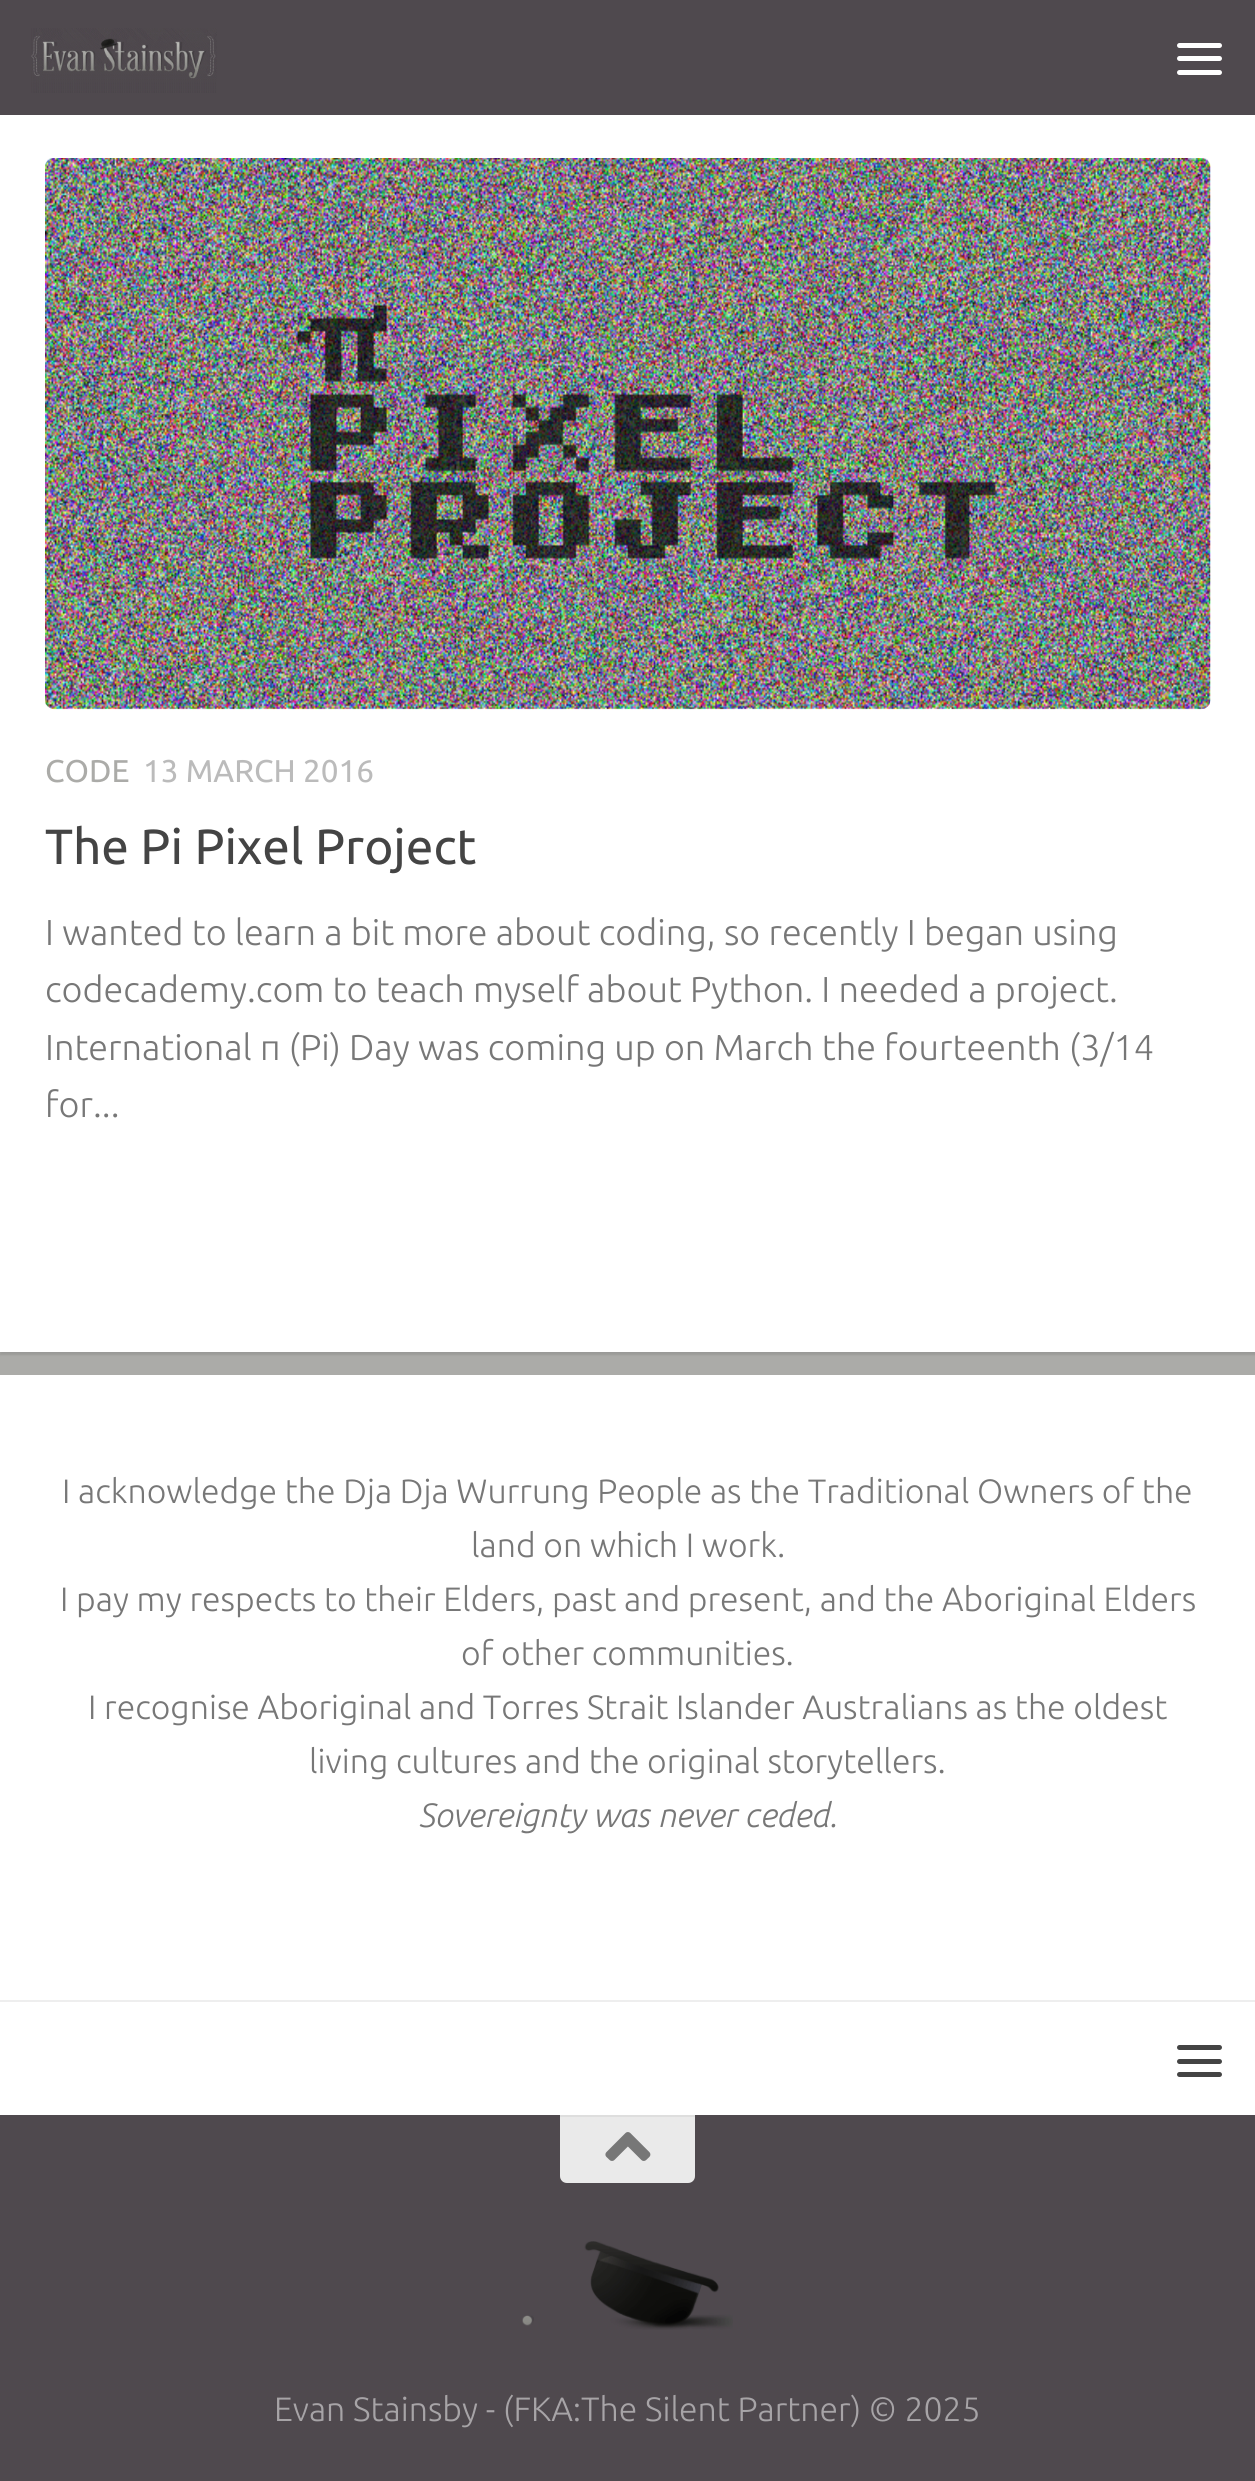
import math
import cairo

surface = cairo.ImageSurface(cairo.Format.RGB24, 1255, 2481)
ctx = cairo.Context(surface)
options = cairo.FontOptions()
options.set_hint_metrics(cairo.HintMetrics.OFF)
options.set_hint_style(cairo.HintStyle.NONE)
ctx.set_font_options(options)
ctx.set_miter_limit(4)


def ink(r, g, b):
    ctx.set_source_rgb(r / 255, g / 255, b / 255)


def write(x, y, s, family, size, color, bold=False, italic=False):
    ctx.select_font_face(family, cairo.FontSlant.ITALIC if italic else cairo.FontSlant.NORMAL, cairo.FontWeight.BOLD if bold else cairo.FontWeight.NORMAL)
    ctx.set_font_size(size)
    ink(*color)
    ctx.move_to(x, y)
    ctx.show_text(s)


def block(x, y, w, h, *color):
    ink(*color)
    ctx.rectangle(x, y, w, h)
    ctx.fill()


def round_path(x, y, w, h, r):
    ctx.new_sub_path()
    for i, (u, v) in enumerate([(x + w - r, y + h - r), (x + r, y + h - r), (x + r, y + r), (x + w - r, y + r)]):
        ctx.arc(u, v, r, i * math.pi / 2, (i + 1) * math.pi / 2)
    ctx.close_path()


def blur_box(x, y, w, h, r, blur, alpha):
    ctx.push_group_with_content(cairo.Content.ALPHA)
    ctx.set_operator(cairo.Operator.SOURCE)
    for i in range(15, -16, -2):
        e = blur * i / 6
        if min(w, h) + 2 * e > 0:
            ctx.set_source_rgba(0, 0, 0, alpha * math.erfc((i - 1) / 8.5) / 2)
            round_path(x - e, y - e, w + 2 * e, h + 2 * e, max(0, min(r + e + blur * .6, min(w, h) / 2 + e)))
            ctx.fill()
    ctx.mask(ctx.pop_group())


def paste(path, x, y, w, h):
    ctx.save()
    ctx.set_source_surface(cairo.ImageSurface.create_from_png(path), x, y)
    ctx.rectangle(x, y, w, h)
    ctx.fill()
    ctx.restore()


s1 = dict(family="Ubuntu", size=31.5, color=(171, 171, 168))
s2 = dict(family="Ubuntu", size=31.5, color=(187, 187, 187))
s3 = dict(family="Ubuntu", size=49.5, color=(68, 68, 68))
s4 = dict(family="Ubuntu Light", size=36, color=(119, 119, 119))
s5 = dict(family="Ubuntu Light", size=33.75, color=(119, 119, 119))
s6 = dict(family="Ubuntu Light", size=33.75, color=(119, 119, 119), italic=True)
s7 = dict(family="Ubuntu Light", size=33.75, color=(167, 164, 167))

ink(171, 171, 168)
ctx.paint()
ink(0, 0, 0)
blur_box(0, 5, 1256, 1350, 0, 1, 0.1)
block(0, 0, 1255, 115, 79, 73, 78)
paste("pic1.png", 31, 28, 186, 65)
ink(255, 255, 255)
round_path(1177, 43, 45, 5, 2.5)
ctx.fill()
round_path(1177, 56, 45, 5, 2.5)
ctx.fill()
round_path(1177, 70, 45, 5, 2.5)
ctx.fill()
block(0, 115, 1255, 1237, 255, 255, 255)
paste("pic2.png", 45, 158, 1166, 552)
write(45, 782, "CODE", **s1)
write(143, 782, "13 MARCH 2016", **s2)
write(45, 864, "The Pi Pixel Project", **s3)
write(45, 945, "I wanted to learn a bit more about coding, so recently I began using", **s4)
write(45, 1002, "codecademy.com to teach myself about Python. I needed a project.", **s4)
write(45, 1060, "International π (Pi) Day was coming up on March the fourteenth (3/14", **s4)
write(45, 1117, "for...", **s4)
block(0, 1375, 1255, 740, 255, 255, 255)
write(62, 1503, "I acknowledge the Dja Dja Wurrung People as the Traditional Owners of the", **s5)
write(471, 1557, "land on which I work.", **s5)
write(60, 1611, "I pay my respects to their Elders, past and present, and the Aboriginal Elders", **s5)
write(461, 1665, "of other communities.", **s5)
write(88, 1719, "I recognise Aboriginal and Torres Strait Islander Australians as the oldest", **s5)
write(309, 1773, "living cultures and the original storytellers.", **s5)
write(418, 1827, "Sovereignty was never ceded.", **s6)
block(0, 2000, 1255, 2, 238, 238, 238)
ink(68, 68, 68)
round_path(1177, 2045, 45, 5, 2.5)
ctx.fill()
round_path(1177, 2059, 45, 5, 2.5)
ctx.fill()
round_path(1177, 2072, 45, 5, 2.5)
ctx.fill()
block(0, 2115, 1255, 366, 79, 73, 78)
ink(234, 234, 234)
ctx.new_path()
ctx.move_to(560, 2115)
ctx.line_to(695, 2115)
ctx.line_to(695, 2176)
ctx.curve_to(695, 2180, 692, 2183, 688, 2183)
ctx.line_to(567, 2183)
ctx.curve_to(563, 2183, 560, 2180, 560, 2176)
ctx.close_path()
ctx.fill()
block(560, 2115, 135, 2, 222, 222, 222)
paste("pic3.png", 605, 2132, 46, 29)
paste("pic4.png", 522, 2241, 211, 89)
write(274, 2421, "Evan Stainsby - (FKA:The Silent Partner) © 2025", **s7)
surface.write_to_png("screenshot.png")
